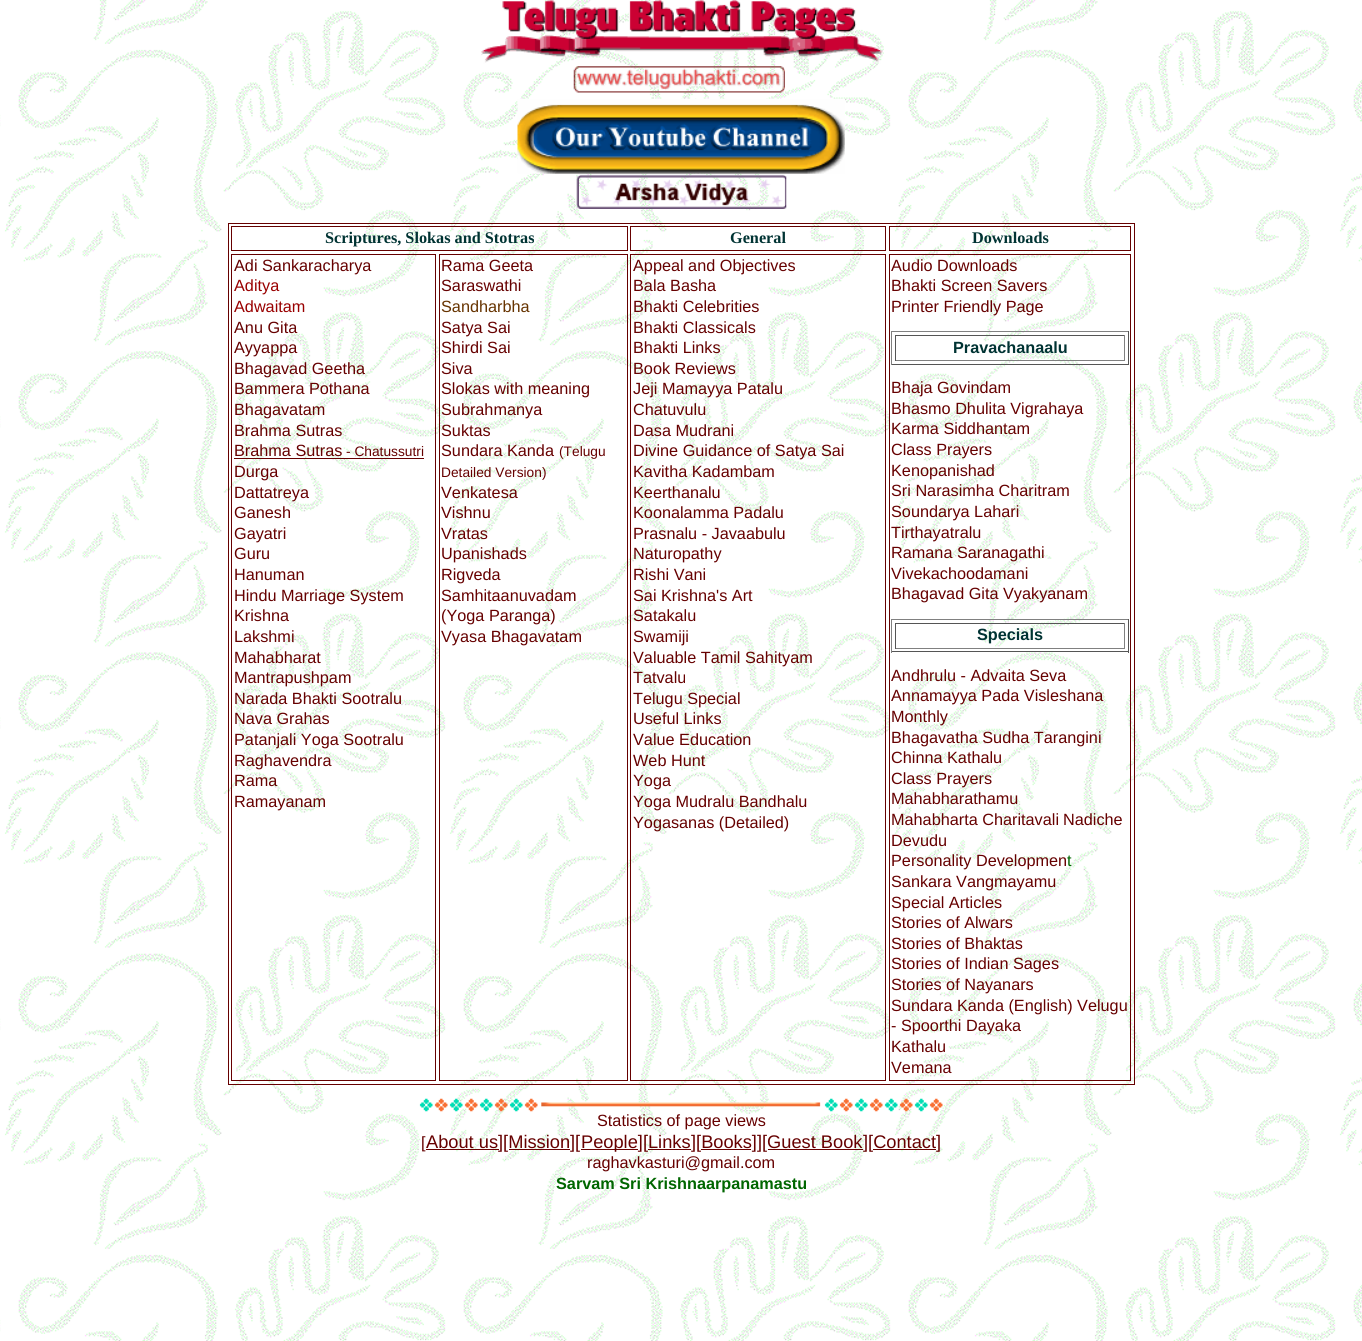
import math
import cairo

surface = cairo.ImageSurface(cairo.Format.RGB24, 1362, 1341)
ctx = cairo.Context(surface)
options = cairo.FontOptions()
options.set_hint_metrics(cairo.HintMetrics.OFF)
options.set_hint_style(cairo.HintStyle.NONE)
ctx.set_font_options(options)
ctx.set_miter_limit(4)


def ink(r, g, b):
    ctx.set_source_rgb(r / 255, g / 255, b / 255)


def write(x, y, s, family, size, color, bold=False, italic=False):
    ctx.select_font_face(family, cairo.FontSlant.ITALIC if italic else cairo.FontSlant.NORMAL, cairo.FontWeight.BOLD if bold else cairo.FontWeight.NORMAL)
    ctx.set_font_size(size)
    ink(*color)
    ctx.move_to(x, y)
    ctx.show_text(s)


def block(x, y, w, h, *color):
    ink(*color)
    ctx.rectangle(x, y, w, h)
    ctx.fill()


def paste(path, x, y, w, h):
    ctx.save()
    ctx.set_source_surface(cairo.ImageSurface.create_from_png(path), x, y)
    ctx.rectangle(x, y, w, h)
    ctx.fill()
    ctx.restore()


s1 = dict(family="Liberation Serif", size=16.25, color=(0, 51, 51), bold=True)
s2 = dict(family="Liberation Sans", size=16.25, color=(102, 0, 0))
s3 = dict(family="Liberation Sans", size=16.25, color=(153, 0, 0))
s4 = dict(family="Liberation Sans", size=13.75, color=(102, 0, 0))
s5 = dict(family="Liberation Sans", size=16.25, color=(102, 51, 0))
s6 = dict(family="Liberation Sans", size=16.25, color=(0, 51, 51), bold=True)
s7 = dict(family="Liberation Sans", size=16.25, color=(0, 102, 0))
s8 = dict(family="Liberation Sans", size=18.25, color=(102, 0, 0))
s9 = dict(family="Liberation Sans", size=16.25, color=(0, 102, 0), bold=True)

ink(255, 255, 255)
ctx.paint()
paste("pic1.png", 0, 0, 1362, 1341)
paste("pic2.png", 481, 0, 402, 64)
paste("pic3.png", 573, 66, 212, 27)
paste("pic4.png", 517, 98, 328, 76)
paste("pic5.png", 576, 174, 211, 35)
ctx.rectangle(228.5, 223.5, 906, 861)
ink(102, 0, 0)
ctx.set_line_width(1)
ctx.stroke()
ctx.rectangle(231.5, 226.5, 396, 24)
ctx.stroke()
write(325, 243, "Scriptures, Slokas and Stotras", **s1)
ctx.rectangle(630.5, 226.5, 255, 24)
ink(102, 0, 0)
ctx.stroke()
write(730, 243, "General", **s1)
ctx.rectangle(889.5, 226.5, 241, 24)
ink(102, 0, 0)
ctx.stroke()
write(972, 243, "Downloads", **s1)
ctx.rectangle(231.5, 254.5, 204, 826)
ink(102, 0, 0)
ctx.stroke()
write(234, 271, "Adi Sankaracharya", **s2)
write(234, 291, "Aditya", **s3)
write(234, 312, "Adwaitam", **s3)
write(234, 333, "Anu Gita", **s2)
write(234, 353, "Ayyappa", **s2)
write(234, 374, "Bhagavad Geetha", **s2)
write(234, 394, "Bammera Pothana", **s2)
write(234, 415, "Bhagavatam", **s2)
write(234, 436, "Brahma Sutras", **s2)
write(234, 456, "Brahma Sutras", **s2)
write(346, 456, "- Chatussutri", **s4)
block(234, 458, 190, 1, 102, 0, 0)
write(234, 477, "Durga", **s2)
write(234, 498, "Dattatreya", **s2)
write(234, 518, "Ganesh", **s2)
write(234, 539, "Gayatri", **s2)
write(234, 559, "Guru", **s2)
write(234, 580, "Hanuman", **s2)
write(234, 601, "Hindu Marriage System", **s2)
write(234, 621, "Krishna", **s2)
write(234, 642, "Lakshmi", **s2)
write(234, 663, "Mahabharat", **s2)
write(234, 683, "Mantrapushpam", **s2)
write(234, 704, "Narada Bhakti Sootralu", **s2)
write(234, 724, "Nava Grahas", **s2)
write(234, 745, "Patanjali Yoga Sootralu", **s2)
write(234, 766, "Raghavendra", **s2)
write(234, 786, "Rama", **s2)
write(234, 807, "Ramayanam", **s2)
ctx.rectangle(439.5, 254.5, 188, 826)
ctx.stroke()
write(441, 271, "Rama Geeta", **s2)
write(441, 291, "Saraswathi", **s2)
write(441, 312, "Sandharbha", **s5)
write(441, 333, "Satya Sai", **s2)
write(441, 353, "Shirdi Sai", **s2)
write(441, 374, "Siva", **s2)
write(441, 394, "Slokas with meaning", **s2)
write(441, 415, "Subrahmanya", **s2)
write(441, 436, "Suktas", **s2)
write(441, 456, "Sundara Kanda", **s2)
write(559, 456, "(Telugu", **s4)
write(441, 477, "Detailed Version)", **s4)
write(441, 498, "Venkatesa", **s2)
write(441, 518, "Vishnu", **s2)
write(441, 539, "Vratas", **s2)
write(441, 559, "Upanishads", **s2)
write(441, 580, "Rigveda", **s2)
write(441, 601, "Samhitaanuvadam", **s2)
write(441, 621, "(Yoga Paranga)", **s2)
write(441, 642, "Vyasa Bhagavatam", **s2)
ctx.rectangle(630.5, 254.5, 255, 826)
ctx.stroke()
write(633, 271, "Appeal and Objectives", **s2)
write(633, 291, "Bala Basha", **s2)
write(633, 312, "Bhakti Celebrities", **s2)
write(633, 333, "Bhakti Classicals", **s2)
write(633, 353, "Bhakti Links", **s2)
write(633, 374, "Book Reviews", **s2)
write(633, 394, "Jeji Mamayya Patalu", **s2)
write(633, 415, "Chatuvulu", **s2)
write(633, 436, "Dasa Mudrani", **s2)
write(633, 456, "Divine Guidance of Satya Sai", **s2)
write(633, 477, "Kavitha Kadambam", **s2)
write(633, 498, "Keerthanalu", **s2)
write(633, 518, "Koonalamma Padalu", **s2)
write(633, 539, "Prasnalu - Javaabulu", **s2)
write(633, 559, "Naturopathy", **s2)
write(633, 580, "Rishi Vani", **s2)
write(633, 601, "Sai Krishna's Art", **s2)
write(633, 621, "Satakalu", **s2)
write(633, 642, "Swamiji", **s2)
write(633, 663, "Valuable Tamil Sahityam", **s2)
write(633, 683, "Tatvalu", **s2)
write(633, 704, "Telugu Special", **s2)
write(633, 724, "Useful Links", **s2)
write(633, 745, "Value Education", **s2)
write(633, 766, "Web Hunt", **s2)
write(633, 786, "Yoga", **s2)
write(633, 807, "Yoga Mudralu Bandhalu", **s2)
write(633, 828, "Yogasanas (Detailed)", **s2)
ctx.rectangle(889.5, 254.5, 241, 826)
ctx.stroke()
write(891, 271, "Audio Downloads", **s2)
write(891, 291, "Bhakti Screen Savers", **s2)
write(891, 312, "Printer Friendly Page", **s2)
block(891, 331, 238, 1, 128, 128, 128)
block(1128, 331, 1, 34, 85, 85, 85)
block(891, 364, 238, 1, 85, 85, 85)
block(891, 331, 1, 34, 128, 128, 128)
block(895, 335, 230, 1, 85, 85, 85)
block(1124, 335, 1, 26, 128, 128, 128)
block(895, 360, 230, 1, 128, 128, 128)
block(895, 335, 1, 26, 85, 85, 85)
write(953, 353, "Pravachanaalu", **s6)
write(891, 393, "Bhaja Govindam", **s2)
write(891, 414, "Bhasmo Dhulita Vigrahaya", **s2)
write(891, 434, "Karma Siddhantam", **s2)
write(891, 455, "Class Prayers", **s2)
write(891, 476, "Kenopanishad", **s2)
write(891, 496, "Sri Narasimha Charitram", **s2)
write(891, 517, "Soundarya Lahari", **s2)
write(891, 538, "Tirthayatralu", **s2)
write(891, 558, "Ramana Saranagathi", **s2)
write(891, 579, "Vivekachoodamani", **s2)
write(891, 599, "Bhagavad Gita Vyakyanam", **s2)
block(891, 619, 238, 1, 128, 128, 128)
block(1128, 619, 1, 34, 85, 85, 85)
block(891, 651, 238, 1, 85, 85, 85)
block(891, 619, 1, 34, 128, 128, 128)
block(895, 623, 230, 1, 85, 85, 85)
block(1124, 623, 1, 26, 128, 128, 128)
block(895, 648, 230, 1, 128, 128, 128)
block(895, 623, 1, 26, 85, 85, 85)
write(977, 640, "Specials", **s6)
write(891, 681, "Andhrulu - Advaita Seva", **s2)
write(891, 701, "Annamayya Pada Visleshana", **s2)
write(891, 722, "Monthly", **s2)
write(891, 743, "Bhagavatha Sudha Tarangini", **s2)
write(891, 763, "Chinna Kathalu", **s2)
write(891, 784, "Class Prayers", **s2)
write(891, 804, "Mahabharathamu", **s2)
write(891, 825, "Mahabharta Charitavali", **s2)
write(1063, 825, "Nadiche", **s2)
write(891, 846, "Devudu", **s2)
write(891, 866, "Personality Developmen", **s2)
write(1067, 866, "t", **s7)
write(891, 887, "Sankara Vangmayamu", **s2)
write(891, 908, "Special Articles", **s2)
write(891, 928, "Stories of Alwars", **s2)
write(891, 949, "Stories of Bhaktas", **s2)
write(891, 969, "Stories of Indian Sages", **s2)
write(891, 990, "Stories of Nayanars", **s2)
write(891, 1011, "Sundara Kanda (English) Velugu", **s2)
write(891, 1031, "- Spoorthi Dayaka", **s2)
write(891, 1052, "Kathalu", **s2)
write(891, 1073, "Vemana", **s2)
paste("pic6.png", 419, 1098, 524, 14)
write(597, 1126, "Statistics of page views", **s2)
write(421, 1148, "[", **s2)
block(426, 1149, 73, 1, 102, 0, 0)
write(426, 1148, "About us][Mission][", **s8)
block(509, 1149, 61, 1, 102, 0, 0)
block(581, 1149, 57, 1, 102, 0, 0)
write(581, 1148, "People][Links", **s8)
block(648, 1149, 43, 1, 102, 0, 0)
write(691, 1148, "][Books]][Guest Book", **s8)
block(701, 1149, 50, 1, 102, 0, 0)
block(768, 1149, 95, 1, 102, 0, 0)
write(863, 1148, "][Contact]", **s8)
block(873, 1149, 63, 1, 102, 0, 0)
write(587, 1168, "raghavkasturi@gmail.com", **s2)
write(556, 1189, "Sarvam Sri Krishnaarpanamastu", **s9)
surface.write_to_png("screenshot.png")
